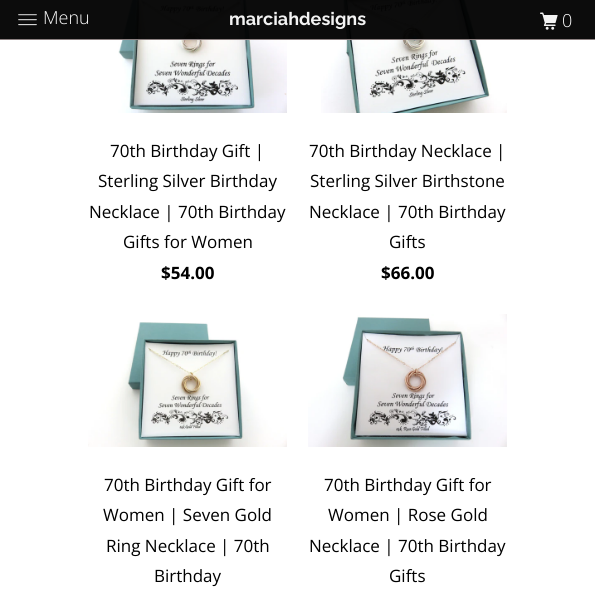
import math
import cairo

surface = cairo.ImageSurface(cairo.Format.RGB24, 595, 597)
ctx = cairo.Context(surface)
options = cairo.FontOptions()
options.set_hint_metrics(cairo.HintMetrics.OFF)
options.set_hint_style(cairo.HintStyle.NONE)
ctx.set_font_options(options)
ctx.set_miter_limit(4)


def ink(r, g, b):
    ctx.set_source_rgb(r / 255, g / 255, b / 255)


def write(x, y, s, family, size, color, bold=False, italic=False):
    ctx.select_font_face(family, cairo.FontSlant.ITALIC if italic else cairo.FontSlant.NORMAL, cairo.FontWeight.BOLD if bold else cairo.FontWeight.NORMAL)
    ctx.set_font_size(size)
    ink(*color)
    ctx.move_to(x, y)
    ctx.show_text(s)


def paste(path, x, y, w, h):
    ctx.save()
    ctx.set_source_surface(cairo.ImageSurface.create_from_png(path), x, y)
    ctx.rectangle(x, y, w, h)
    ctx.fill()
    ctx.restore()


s1 = dict(family="Open Sans Light", size=18, color=(255, 255, 255))
s2 = dict(family="Raleway", size=18, color=(243, 243, 243), bold=True)
s3 = dict(family="Open Sans", size=17, color=(0, 0, 0))
s4 = dict(family="Open Sans", size=17, color=(0, 0, 0), bold=True)

ink(255, 255, 255)
ctx.paint()
paste("pic3.png", 118, 0, 169, 113)
paste("pic4.png", 321, 0, 186, 113)
ctx.set_source_rgba(0, 0, 0, 0.95)
ctx.rectangle(0, 0, 595, 40)
ctx.fill()
ctx.set_source_rgba(0.573, 0.529, 0.529, 0.95)
ctx.rectangle(0, 39, 595, 1)
ctx.fill()
paste("pic1.png", 18, 14, 19, 12)
write(43, 24, "Menu", **s1)
write(229, 25, "marciahdesigns", **s2)
paste("pic2.png", 540, 12, 18, 18)
write(562, 27, "0", **s1)
write(110, 157, "70th Birthday Gift |", **s3)
write(98, 187, "Sterling Silver Birthday", **s3)
write(89, 218, "Necklace | 70th Birthday", **s3)
write(123, 248, "Gifts for Women", **s3)
write(161, 279, "$54.00", **s4)
write(309, 157, "70th Birthday Necklace |", **s3)
write(310, 187, "Sterling Silver Birthstone", **s3)
write(309, 218, "Necklace | 70th Birthday", **s3)
write(389, 248, "Gifts", **s3)
write(381, 279, "$66.00", **s4)
paste("pic5.png", 88, 322, 199, 125)
write(104, 491, "70th Birthday Gift for", **s3)
write(103, 521, "Women | Seven Gold", **s3)
write(106, 552, "Ring Necklace | 70th", **s3)
write(154, 582, "Birthday", **s3)
paste("pic6.png", 308, 314, 199, 133)
write(324, 491, "70th Birthday Gift for", **s3)
write(328, 521, "Women | Rose Gold", **s3)
write(309, 552, "Necklace | 70th Birthday", **s3)
write(389, 582, "Gifts", **s3)
surface.write_to_png("screenshot.png")
